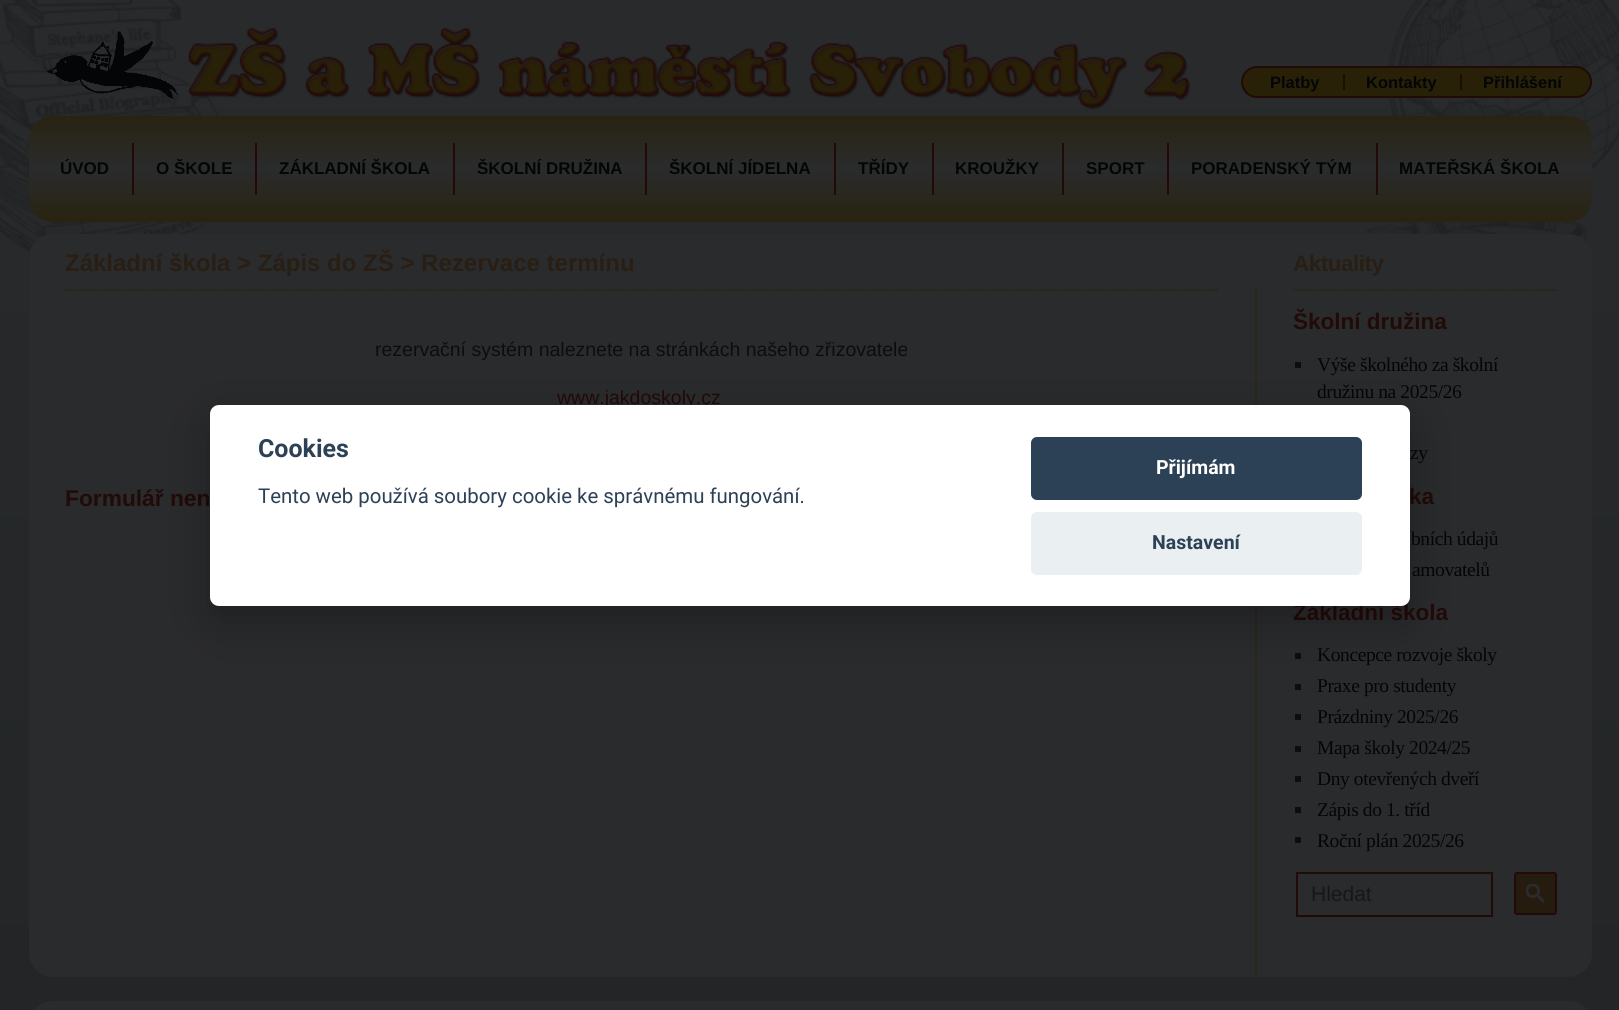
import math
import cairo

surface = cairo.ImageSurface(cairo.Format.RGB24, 1619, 1010)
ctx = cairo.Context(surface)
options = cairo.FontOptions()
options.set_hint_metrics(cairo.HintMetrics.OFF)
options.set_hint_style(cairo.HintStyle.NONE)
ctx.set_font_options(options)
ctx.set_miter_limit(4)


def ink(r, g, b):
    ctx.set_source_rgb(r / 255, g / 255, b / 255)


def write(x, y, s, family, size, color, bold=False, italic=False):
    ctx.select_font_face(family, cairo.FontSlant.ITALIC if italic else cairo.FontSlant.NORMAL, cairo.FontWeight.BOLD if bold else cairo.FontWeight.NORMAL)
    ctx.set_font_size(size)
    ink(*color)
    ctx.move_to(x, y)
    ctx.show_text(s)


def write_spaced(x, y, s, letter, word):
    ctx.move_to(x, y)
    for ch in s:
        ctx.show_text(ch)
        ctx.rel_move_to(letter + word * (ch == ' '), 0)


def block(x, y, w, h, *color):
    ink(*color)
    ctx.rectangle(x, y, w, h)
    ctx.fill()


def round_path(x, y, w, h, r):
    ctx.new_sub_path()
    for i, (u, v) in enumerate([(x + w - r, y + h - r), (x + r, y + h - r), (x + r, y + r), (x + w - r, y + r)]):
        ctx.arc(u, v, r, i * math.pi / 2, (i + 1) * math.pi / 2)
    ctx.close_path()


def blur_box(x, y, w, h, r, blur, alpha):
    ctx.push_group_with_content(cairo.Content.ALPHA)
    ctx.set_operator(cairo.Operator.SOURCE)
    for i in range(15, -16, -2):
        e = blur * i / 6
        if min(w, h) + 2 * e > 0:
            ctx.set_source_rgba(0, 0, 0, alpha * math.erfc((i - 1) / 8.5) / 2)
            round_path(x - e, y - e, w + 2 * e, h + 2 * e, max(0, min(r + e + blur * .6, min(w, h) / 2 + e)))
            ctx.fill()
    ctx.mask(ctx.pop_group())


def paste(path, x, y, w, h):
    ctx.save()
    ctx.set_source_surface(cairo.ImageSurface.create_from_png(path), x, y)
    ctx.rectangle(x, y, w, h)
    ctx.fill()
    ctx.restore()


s1 = dict(family="Liberation Sans", size=16.5, color=(3, 5, 7), bold=True)
s2 = dict(family="Liberation Sans", size=17, color=(3, 5, 7), bold=True)
s3 = dict(family="Liberation Sans", size=24, color=(40, 30, 20), bold=True)
s4 = dict(family="Liberation Sans", size=19.5, color=(11, 13, 14))
s5 = dict(family="Liberation Sans", size=19.5, color=(33, 10, 7))
s6 = dict(family="Liberation Sans", size=22.75, color=(33, 10, 7), bold=True)
s7 = dict(family="Liberation Sans", size=22.5, color=(33, 10, 7), bold=True)
s8 = dict(family="Liberation Sans", size=21, color=(21, 23, 24))
s9 = dict(family="Roboto", size=25, color=(45, 65, 86), bold=True)
s10 = dict(family="Roboto", size=20.4, color=(45, 65, 86))
s11 = dict(family="Roboto", size=19.5, color=(255, 255, 255), bold=True)
s12 = dict(family="Roboto", size=19.5, color=(45, 65, 86), bold=True)

ink(255, 255, 255)
ctx.paint()
gradient = cairo.LinearGradient(810, 0, 810, 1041)
gradient.add_color_stop_rgba(0, 0.157, 0.165, 0.173, 1)
gradient.add_color_stop_rgba(1, 0.137, 0.145, 0.149, 1)
ctx.set_source(gradient)
ctx.rectangle(0, 0, 1619, 1010)
ctx.fill()
paste("pic1.png", 0, 0, 1619, 253)
paste("pic2.png", 46, 31, 132, 68)
paste("pic3.png", 187, 28, 1004, 82)
ink(41, 32, 8)
round_path(1242, 67, 349, 30, 15)
ctx.fill_preserve()
ink(33, 10, 7)
ctx.stroke()
block(1343, 74, 2, 16, 33, 10, 7)
write(1270, 88, "Platby", **s1)
block(1460, 74, 2, 16, 33, 10, 7)
write(1366, 88, "Kontakty", **s1)
write(1483, 88, "Přihlášení", **s1)
gradient = cairo.LinearGradient(810, 115, 810, 222)
gradient.add_color_stop_rgba(0, 0.161, 0.137, 0.063, 1)
gradient.add_color_stop_rgba(0.5, 0.165, 0.169, 0.176, 1)
gradient.add_color_stop_rgba(1, 0.161, 0.137, 0.063, 1)
ctx.set_source(gradient)
round_path(29, 116, 1563, 106, 24)
ctx.fill()
block(132, 143, 2, 52, 33, 10, 7)
write(60, 174, "ÚVOD", **s2)
block(255, 143, 2, 52, 33, 10, 7)
write(156, 174, "O ŠKOLE", **s2)
block(453, 143, 2, 52, 33, 10, 7)
write(279, 174, "ZÁKLADNÍ ŠKOLA", **s2)
block(645, 143, 2, 52, 33, 10, 7)
write(477, 174, "ŠKOLNÍ DRUŽINA", **s2)
block(834, 143, 2, 52, 33, 10, 7)
write(669, 174, "ŠKOLNÍ JÍDELNA", **s2)
block(932, 143, 2, 52, 33, 10, 7)
write(858, 174, "TŘÍDY", **s2)
block(1062, 143, 2, 52, 33, 10, 7)
write(955, 174, "KROUŽKY", **s2)
block(1167, 143, 2, 52, 33, 10, 7)
write(1086, 174, "SPORT", **s2)
block(1376, 143, 2, 52, 33, 10, 7)
write(1191, 174, "PORADENSKÝ TÝM", **s2)
write(1399, 174, "MATEŘSKÁ ŠKOLA", **s2)
ink(42, 43, 45)
round_path(29, 234, 1563, 743, 24)
ctx.fill()
ctx.new_path()
ctx.move_to(64.5, 290)
ctx.line_to(1219.5, 290)
ink(40, 30, 8)
ctx.set_line_width(1.5)
ctx.set_dash([1.5, 1.5])
ctx.stroke()
write(65, 271, "Základní škola > Zápis do ZŠ > Rezervace termínu", **s3)
write(375, 356, "rezervační systém naleznete na stránkách našeho zřizovatele", **s4)
write(557, 404, "www.jakdoskoly.cz", **s5)
write(65, 506, "Formulář nen", **s6)
ctx.new_path()
ctx.move_to(1256, 289.5)
ctx.line_to(1256, 976.5)
ink(40, 30, 8)
ctx.stroke()
ctx.new_path()
ctx.move_to(1293, 290)
ctx.line_to(1555.5, 290)
ctx.stroke()
ctx.set_font_size(22.5)
ink(40, 30, 20)
write_spaced(1293, 271, "Aktuality", -0.5, 0)
write(1293, 329, "Školní družina", **s7)
block(1295, 362, 6, 6, 11, 13, 14)
ctx.select_font_face("Liberation Serif")
ctx.set_font_size(19.5)
ink(3, 5, 7)
write_spaced(1317, 371, "Výše školného za školní", -0.4, 0)
write_spaced(1317, 398, "družinu na 2025/26", -0.4, 0)
write_spaced(1410, 459, "zy", -0.4, 0)
write(1409, 504, "ka", **s7)
ctx.select_font_face("Liberation Serif")
ctx.set_font_size(19.5)
ink(3, 5, 7)
write_spaced(1411, 545, "bních údajů", -0.4, 0)
write_spaced(1412, 576, "amovatelů", -0.4, 0)
write(1293, 620, "Základní škola", **s7)
block(1295, 653, 6, 6, 11, 13, 14)
ctx.select_font_face("Liberation Serif")
ctx.set_font_size(19.5)
ink(3, 5, 7)
write_spaced(1317, 661, "Koncepce rozvoje školy", -0.4, 0)
block(1295, 684, 6, 6, 11, 13, 14)
ink(3, 5, 7)
write_spaced(1317, 692, "Praxe pro studenty", -0.4, 0)
block(1295, 714, 6, 6, 11, 13, 14)
ink(3, 5, 7)
write_spaced(1317, 723, "Prázdniny 2025/26", -0.4, 0)
block(1295, 746, 6, 6, 11, 13, 14)
ink(3, 5, 7)
write_spaced(1317, 754, "Mapa školy 2024/25", -0.4, 0)
block(1295, 776, 6, 6, 11, 13, 14)
ink(3, 5, 7)
write_spaced(1317, 785, "Dny otevřených dveří", -0.4, 0)
block(1295, 807, 6, 6, 11, 13, 14)
ink(3, 5, 7)
write_spaced(1317, 816, "Zápis do 1. tříd", -0.4, 0)
block(1295, 837, 6, 6, 11, 13, 14)
ink(3, 5, 7)
write_spaced(1317, 847, "Roční plán 2025/26", -0.4, 0)
ctx.rectangle(1297, 873, 195, 43)
ink(33, 10, 7)
ctx.set_line_width(2)
ctx.set_dash([])
ctx.stroke()
write(1311, 901, "Hledat", **s8)
ink(38, 27, 15)
round_path(1515, 873, 41, 41, 2)
ctx.fill_preserve()
ink(33, 10, 7)
ctx.stroke()
paste("pic4.png", 1526, 884, 19, 19)
gradient = cairo.LinearGradient(810, 1000, 810, 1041)
gradient.add_color_stop_rgba(0, 0.165, 0.169, 0.176, 1)
gradient.add_color_stop_rgba(1, 0.153, 0.157, 0.165, 1)
ctx.set_source(gradient)
ctx.new_path()
ctx.move_to(53, 1001)
ctx.line_to(1568, 1001)
ctx.curve_to(1581.5, 1001, 1592, 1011.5, 1592, 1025)
ctx.line_to(1592, 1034)
ctx.line_to(29, 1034)
ctx.line_to(29, 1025)
ctx.curve_to(29, 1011.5, 39.5, 1001, 53, 1001)
ctx.close_path()
ctx.fill()
ink(2, 2, 3)
blur_box(210, 420, 1200, 201, 9, 22.5, 0.28)
ink(255, 255, 255)
round_path(210, 405, 1200, 201, 9)
ctx.fill()
write(258, 457, "Cookies", **s9)
write(258, 503, "Tento web používá soubory cookie ke správnému fungování.", **s10)
round_path(1031, 437, 331, 63, 6)
ctx.fill()
write(1156, 474, "Přijímám", **s11)
ink(234, 239, 242)
round_path(1031, 512, 331, 63, 6)
ctx.fill()
write(1152, 549, "Nastavení", **s12)
surface.write_to_png("screenshot.png")
